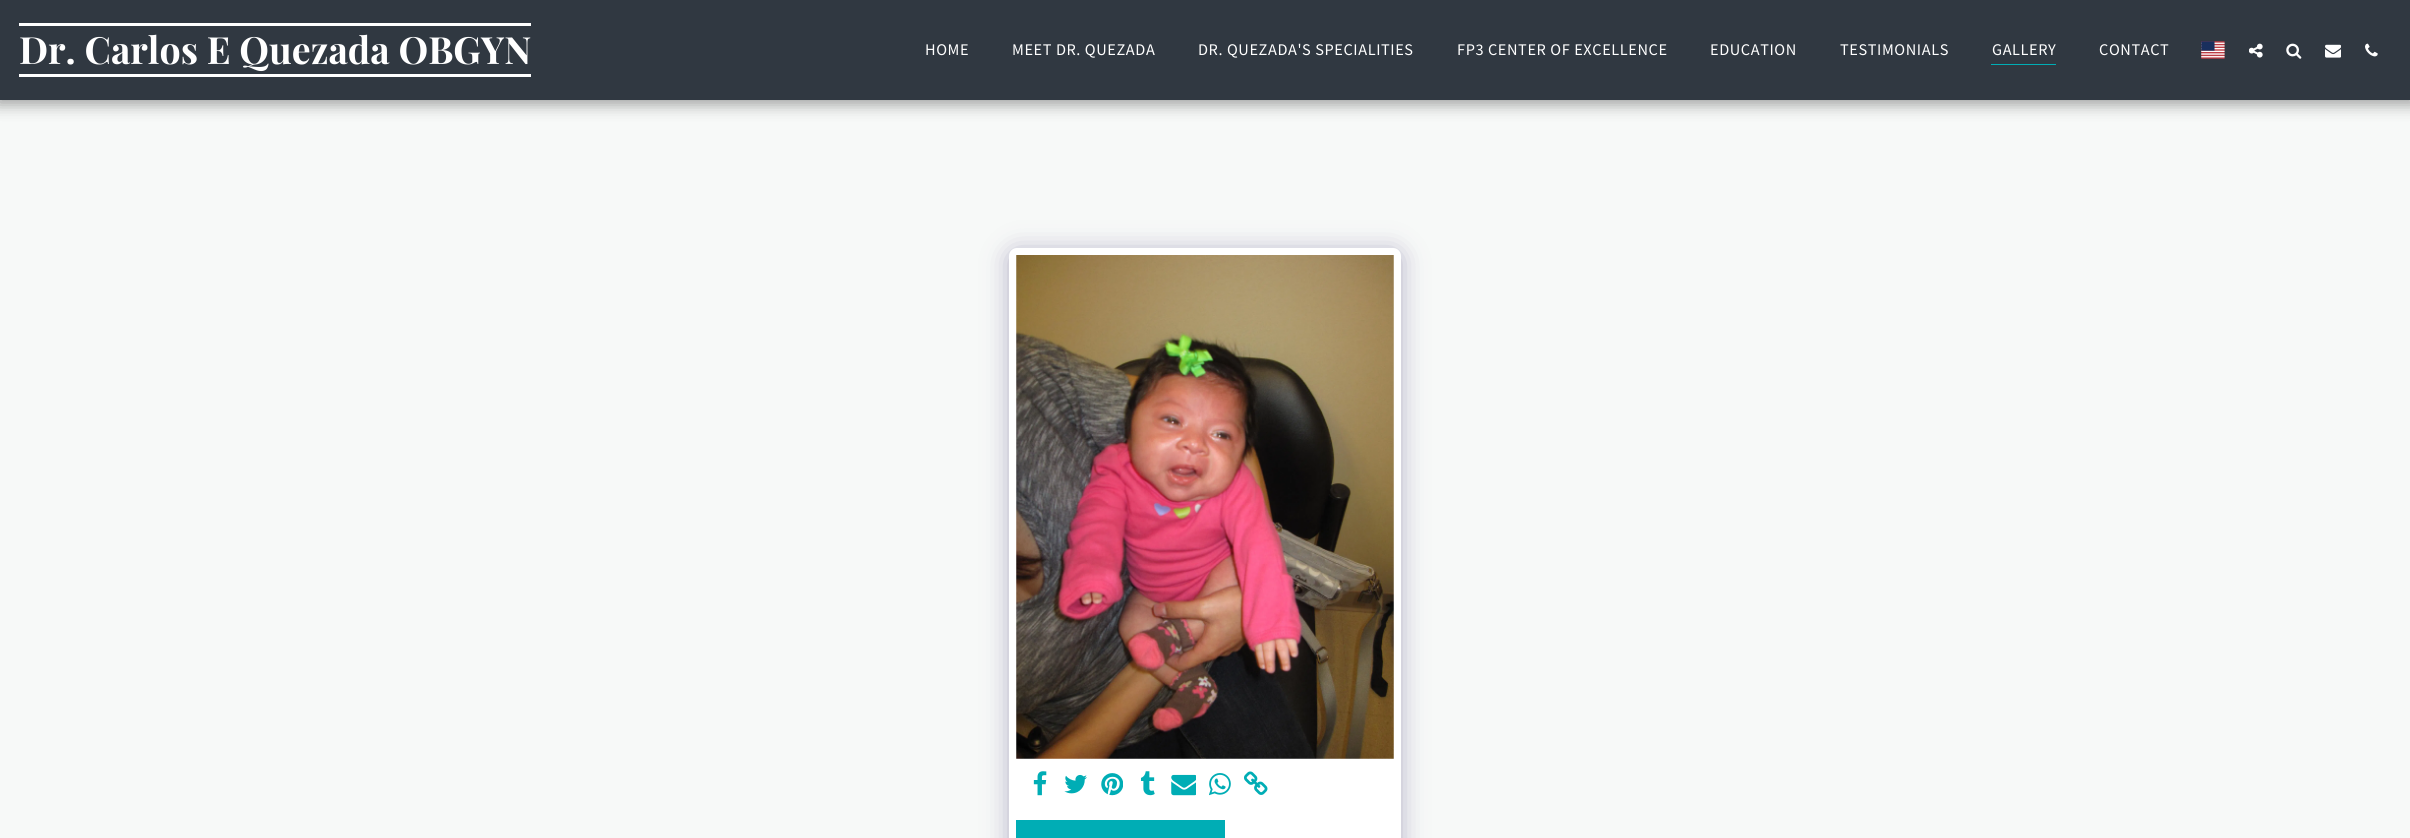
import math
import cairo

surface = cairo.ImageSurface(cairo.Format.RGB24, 2410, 838)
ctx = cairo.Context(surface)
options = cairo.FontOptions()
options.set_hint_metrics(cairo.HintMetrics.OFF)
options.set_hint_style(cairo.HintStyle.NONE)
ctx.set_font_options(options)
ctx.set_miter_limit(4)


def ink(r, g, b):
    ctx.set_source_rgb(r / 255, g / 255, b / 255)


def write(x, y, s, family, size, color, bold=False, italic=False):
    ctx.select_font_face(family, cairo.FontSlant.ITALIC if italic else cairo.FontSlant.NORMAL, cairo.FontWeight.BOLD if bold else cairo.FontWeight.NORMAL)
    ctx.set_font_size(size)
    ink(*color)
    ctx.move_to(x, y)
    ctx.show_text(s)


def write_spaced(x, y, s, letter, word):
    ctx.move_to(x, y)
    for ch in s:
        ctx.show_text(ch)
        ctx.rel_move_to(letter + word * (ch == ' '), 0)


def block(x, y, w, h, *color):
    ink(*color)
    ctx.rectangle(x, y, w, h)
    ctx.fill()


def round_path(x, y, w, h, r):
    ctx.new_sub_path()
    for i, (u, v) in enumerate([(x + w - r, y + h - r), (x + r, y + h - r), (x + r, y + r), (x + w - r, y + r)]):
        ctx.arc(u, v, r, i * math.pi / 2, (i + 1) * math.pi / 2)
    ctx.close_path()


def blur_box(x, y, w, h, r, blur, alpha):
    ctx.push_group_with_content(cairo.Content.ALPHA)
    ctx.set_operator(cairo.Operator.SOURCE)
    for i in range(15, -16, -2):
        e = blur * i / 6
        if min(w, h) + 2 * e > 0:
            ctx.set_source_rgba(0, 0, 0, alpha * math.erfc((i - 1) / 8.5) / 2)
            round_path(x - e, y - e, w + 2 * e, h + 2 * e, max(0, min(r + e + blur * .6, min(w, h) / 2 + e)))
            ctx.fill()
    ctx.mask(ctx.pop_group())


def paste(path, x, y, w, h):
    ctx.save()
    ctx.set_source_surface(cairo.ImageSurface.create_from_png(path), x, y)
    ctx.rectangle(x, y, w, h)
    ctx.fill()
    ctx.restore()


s1 = dict(family="Playfair Display", size=37.5, color=(255, 255, 255), bold=True)

ink(247, 249, 248)
ctx.paint()
ink(0, 0, 0)
blur_box(-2, 0, 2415, 105, 0, 7.5, 0.35)
block(0, 0, 2410, 100, 48, 56, 65)
block(19, 23, 512, 3, 255, 255, 255)
block(19, 74, 512, 3, 255, 255, 255)
write(19, 64, "Dr. Carlos E Quezada OBGYN", **s1)
ctx.select_font_face("Source Sans Pro")
ctx.set_font_size(16.25)
write_spaced(925, 55, "HOME", 0.6, 0)
write_spaced(1012, 55, "MEET DR. QUEZADA", 0.6, 0)
write_spaced(1198, 55, "DR. QUEZADA'S SPECIALITIES", 0.6, 0)
write_spaced(1457, 55, "FP3 CENTER OF EXCELLENCE", 0.6, 0)
write_spaced(1710, 55, "EDUCATION", 0.6, 0)
write_spaced(1840, 55, "TESTIMONIALS", 0.6, 0)
write_spaced(1992, 55, "GALLERY", 0.6, 0)
block(1991, 64, 65, 1, 0, 173, 181)
ink(255, 255, 255)
write_spaced(2099, 55, "CONTACT", 0.6, 0)
paste("pic1.png", 2201, 41, 24, 18)
paste("pic2.png", 2249, 43, 14, 15)
paste("pic3.png", 2286, 43, 16, 16)
paste("pic4.png", 2325, 44, 16, 14)
paste("pic5.png", 2365, 43, 13, 14)
ink(77, 63, 122)
blur_box(1009, 251, 392, 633, 8, 12.5, 0.4)
ink(255, 255, 255)
round_path(1009, 248, 392, 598, 8)
ctx.fill()
paste("pic6.png", 1016, 255, 378, 504)
paste("pic7.png", 1033, 771, 14, 25)
paste("pic8.png", 1064, 774, 23, 20)
paste("pic9.png", 1101, 773, 22, 23)
paste("pic10.png", 1140, 771, 15, 25)
paste("pic11.png", 1171, 774, 25, 22)
paste("pic12.png", 1209, 773, 22, 23)
paste("pic13.png", 1244, 771, 24, 24)
block(1016, 820, 209, 18, 0, 173, 181)
surface.write_to_png("screenshot.png")
